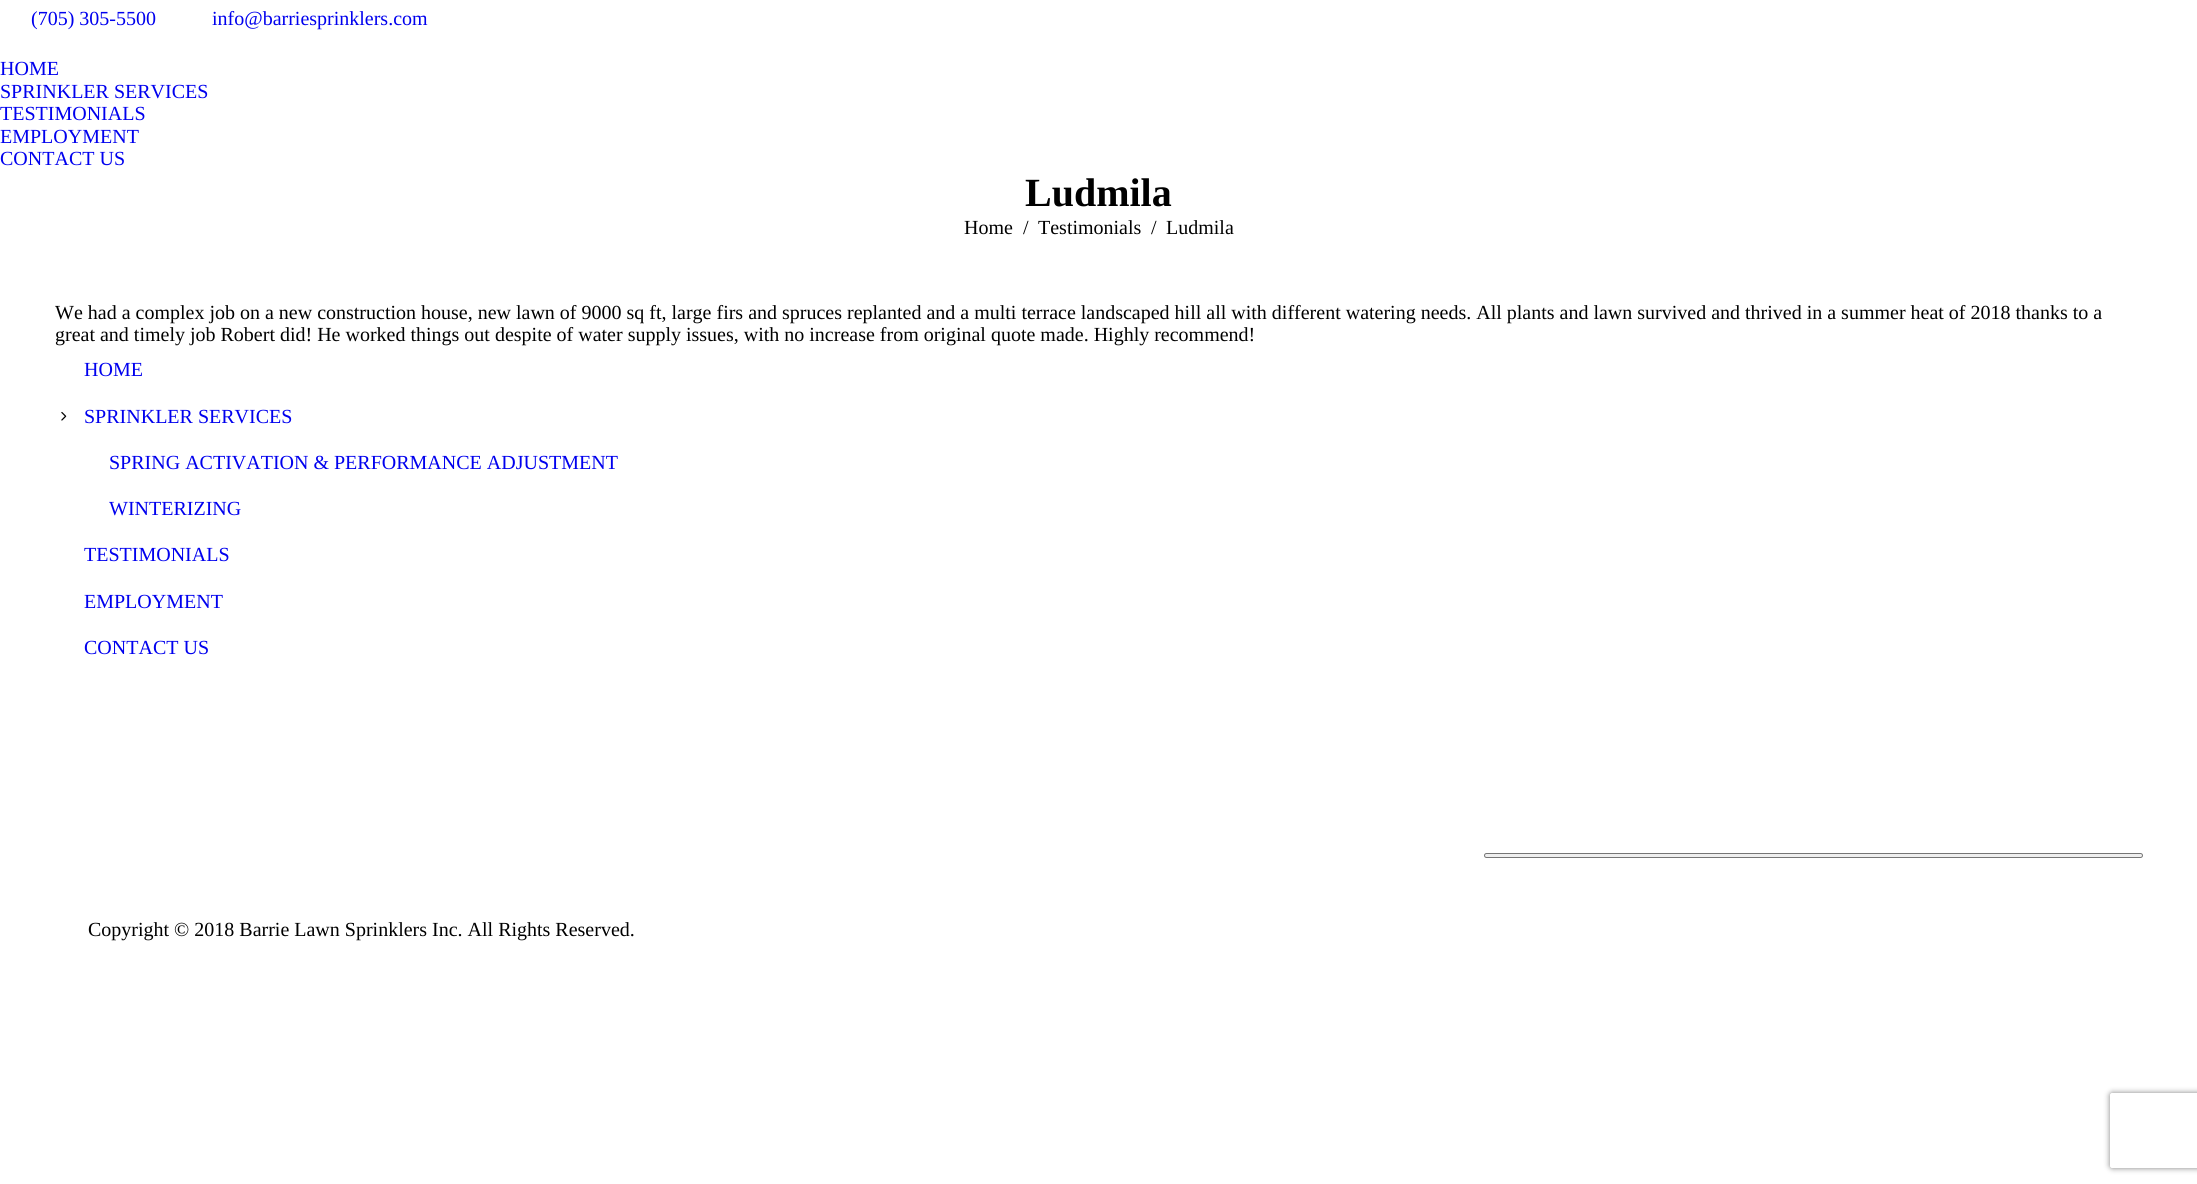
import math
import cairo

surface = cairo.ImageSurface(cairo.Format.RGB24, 2197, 1184)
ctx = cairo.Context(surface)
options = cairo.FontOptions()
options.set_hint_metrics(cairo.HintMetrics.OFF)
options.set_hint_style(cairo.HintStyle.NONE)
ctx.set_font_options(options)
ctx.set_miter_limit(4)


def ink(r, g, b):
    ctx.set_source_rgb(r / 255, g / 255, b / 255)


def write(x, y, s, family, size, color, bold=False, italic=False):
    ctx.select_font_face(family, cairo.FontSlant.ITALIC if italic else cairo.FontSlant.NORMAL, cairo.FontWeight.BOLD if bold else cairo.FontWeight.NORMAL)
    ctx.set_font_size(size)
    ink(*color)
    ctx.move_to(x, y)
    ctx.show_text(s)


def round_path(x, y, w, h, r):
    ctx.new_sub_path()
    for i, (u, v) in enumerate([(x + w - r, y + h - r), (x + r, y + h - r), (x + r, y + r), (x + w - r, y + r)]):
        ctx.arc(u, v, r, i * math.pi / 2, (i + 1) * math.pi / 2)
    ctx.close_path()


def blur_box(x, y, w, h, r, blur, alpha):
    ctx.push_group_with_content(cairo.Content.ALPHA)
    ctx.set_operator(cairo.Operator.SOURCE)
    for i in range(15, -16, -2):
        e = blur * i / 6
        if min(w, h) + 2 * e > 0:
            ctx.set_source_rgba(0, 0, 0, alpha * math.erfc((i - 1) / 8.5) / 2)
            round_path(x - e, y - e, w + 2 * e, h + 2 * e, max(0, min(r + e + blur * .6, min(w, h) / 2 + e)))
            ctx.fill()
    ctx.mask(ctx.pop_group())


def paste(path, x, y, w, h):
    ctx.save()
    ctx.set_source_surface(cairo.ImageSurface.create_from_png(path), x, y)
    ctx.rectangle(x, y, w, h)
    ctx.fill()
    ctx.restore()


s1 = dict(family="Liberation Serif", size=20, color=(0, 0, 238))
s2 = dict(family="Liberation Serif", size=40, color=(0, 0, 0), bold=True)
s3 = dict(family="Liberation Serif", size=20, color=(0, 0, 0))

ink(255, 255, 255)
ctx.paint()
write(31, 25, "(705) 305-5500", **s1)
write(212, 25, "info@barriesprinklers.com", **s1)
write(0, 75, "HOME", **s1)
write(0, 98, "SPRINKLER SERVICES", **s1)
write(0, 120, "TESTIMONIALS", **s1)
write(0, 143, "EMPLOYMENT", **s1)
write(0, 165, "CONTACT US", **s1)
write(1025, 206, "Ludmila", **s2)
write(964, 234, "Home", **s3)
write(1023, 234, "/", **s3)
write(1038, 234, "Testimonials", **s3)
write(1151, 234, "/", **s3)
write(1166, 234, "Ludmila", **s3)
write(55, 319, "We had a complex job on a new construction house, new lawn of 9000 sq ft, large firs and spruces replanted and a multi terrace landscaped hill all with different watering needs. All plants and lawn survived and thrived in a summer heat of 2018 thanks to a", **s3)
write(55, 341, "great and timely job Robert did! He worked things out despite of water supply issues, with no increase from original quote made. Highly recommend!", **s3)
write(84, 376, "HOME", **s1)
paste("pic1.png", 61, 411, 6, 10)
write(84, 423, "SPRINKLER SERVICES", **s1)
write(109, 469, "SPRING ACTIVATION & PERFORMANCE ADJUSTMENT", **s1)
write(109, 515, "WINTERIZING", **s1)
write(84, 561, "TESTIMONIALS", **s1)
write(84, 608, "EMPLOYMENT", **s1)
write(84, 654, "CONTACT US", **s1)
ink(239, 239, 239)
round_path(1484.5, 853.5, 658, 4, 2)
ctx.fill_preserve()
ink(118, 118, 118)
ctx.set_line_width(1)
ctx.stroke()
write(88, 936, "Copyright © 2018 Barrie Lawn Sprinklers Inc. All Rights Reserved.", **s3)
ctx.save()
ctx.set_fill_rule(cairo.FillRule.EVEN_ODD)
ctx.new_path()
ctx.move_to(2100, 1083)
ctx.line_to(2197, 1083)
ctx.line_to(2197, 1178)
ctx.line_to(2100, 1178)
ctx.close_path()
ctx.move_to(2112.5, 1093)
ctx.line_to(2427.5, 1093)
ctx.curve_to(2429, 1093, 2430, 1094, 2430, 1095.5)
ctx.line_to(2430, 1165.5)
ctx.curve_to(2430, 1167, 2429, 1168, 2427.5, 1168)
ctx.line_to(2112.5, 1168)
ctx.curve_to(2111, 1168, 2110, 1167, 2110, 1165.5)
ctx.line_to(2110, 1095.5)
ctx.curve_to(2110, 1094, 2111, 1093, 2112.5, 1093)
ctx.close_path()
ctx.clip()
ink(128, 128, 128)
blur_box(2110, 1093, 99, 75, 2.5, 3, 1)
ctx.restore()
surface.write_to_png("screenshot.png")
